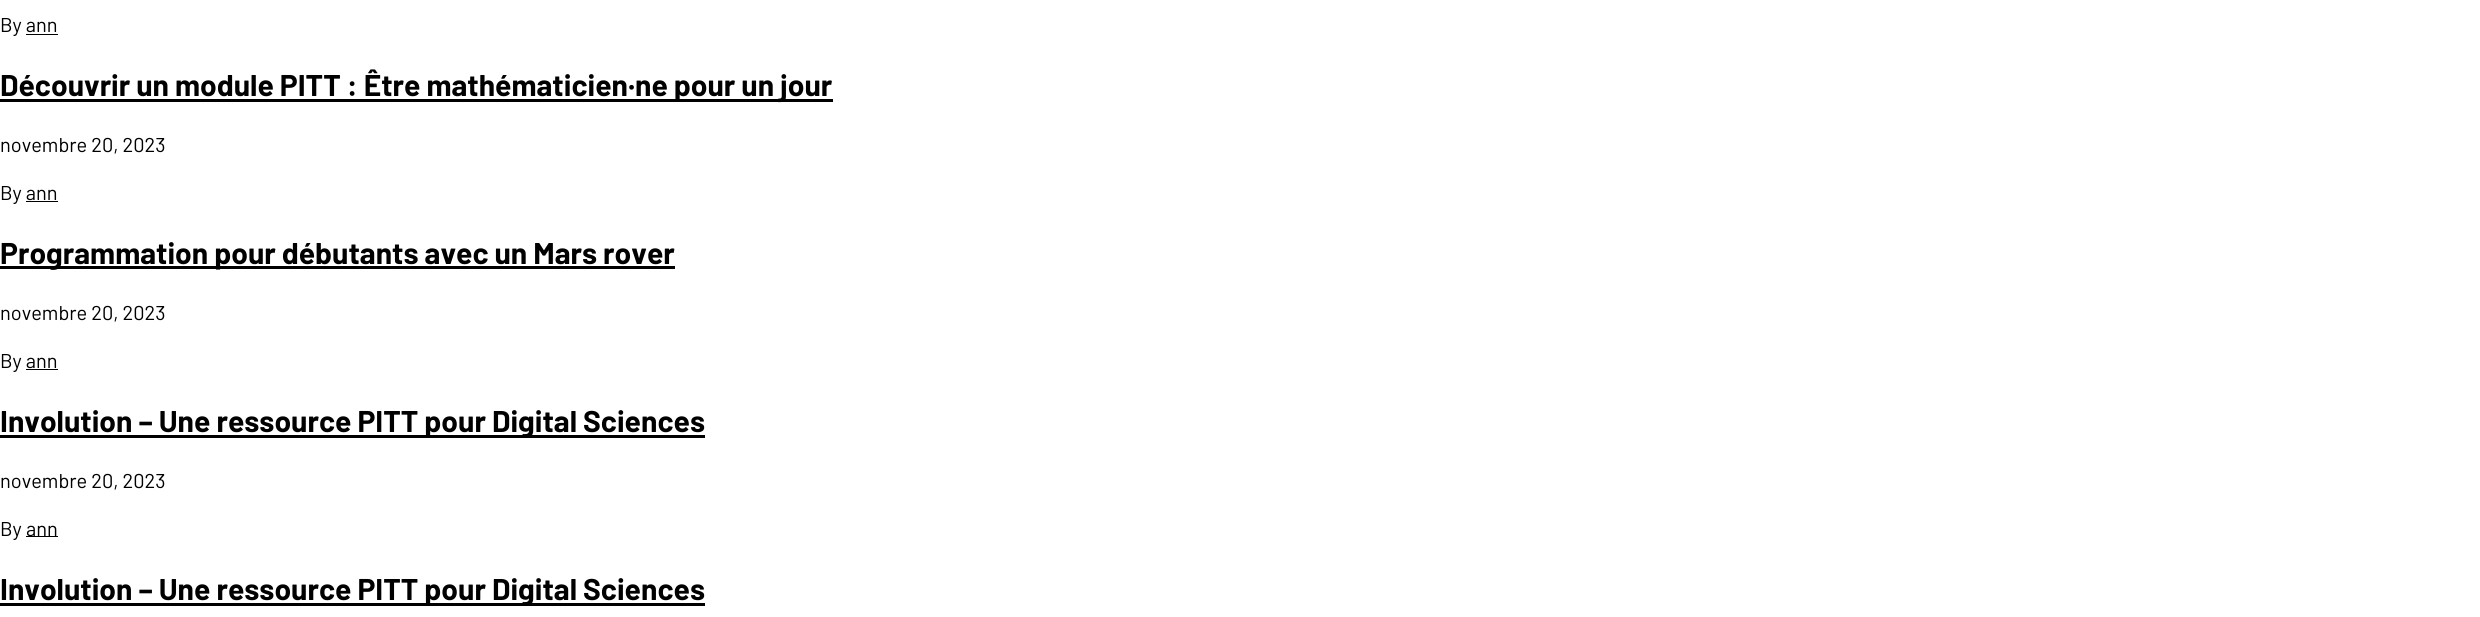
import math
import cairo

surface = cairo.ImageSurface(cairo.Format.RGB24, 2480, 617)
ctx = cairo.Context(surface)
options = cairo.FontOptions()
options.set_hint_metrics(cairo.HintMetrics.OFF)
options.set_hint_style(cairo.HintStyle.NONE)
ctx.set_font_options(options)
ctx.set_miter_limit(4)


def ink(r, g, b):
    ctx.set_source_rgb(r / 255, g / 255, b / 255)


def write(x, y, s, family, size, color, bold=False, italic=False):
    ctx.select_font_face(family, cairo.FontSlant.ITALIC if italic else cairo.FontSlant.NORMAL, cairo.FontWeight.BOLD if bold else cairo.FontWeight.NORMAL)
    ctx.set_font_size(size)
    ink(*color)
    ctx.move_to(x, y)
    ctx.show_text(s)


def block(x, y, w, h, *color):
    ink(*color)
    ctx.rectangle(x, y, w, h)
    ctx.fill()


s1 = dict(family="Barlow", size=20, color=(0, 0, 0))
s2 = dict(family="Barlow", size=30, color=(0, 0, 0), bold=True)

ink(255, 255, 255)
ctx.paint()
write(0, 32, "By ann", **s1)
block(26, 34, 32, 1, 0, 0, 0)
block(0, 99, 833, 3, 0, 0, 0)
write(0, 96, "Découvrir un module PITT : Être mathématicien·ne pour un jour", **s2)
write(0, 152, "novembre 20, 2023", **s1)
write(0, 200, "By ann", **s1)
block(26, 201, 32, 1, 0, 0, 0)
block(0, 266, 675, 3, 0, 0, 0)
write(0, 264, "Programmation pour débutants avec un Mars rover", **s2)
write(0, 320, "novembre 20, 2023", **s1)
write(0, 368, "By ann", **s1)
block(26, 369, 32, 1, 0, 0, 0)
block(0, 435, 705, 3, 0, 0, 0)
write(0, 432, "Involution – Une ressource PITT pour Digital Sciences", **s2)
write(0, 488, "novembre 20, 2023", **s1)
write(0, 536, "By", **s1)
block(26, 536, 32, 1, 0, 0, 0)
write(26, 536, "ann", **s1)
block(0, 603, 705, 3, 0, 0, 0)
write(0, 600, "Involution – Une ressource PITT pour Digital Sciences", **s2)
surface.write_to_png("screenshot.png")
